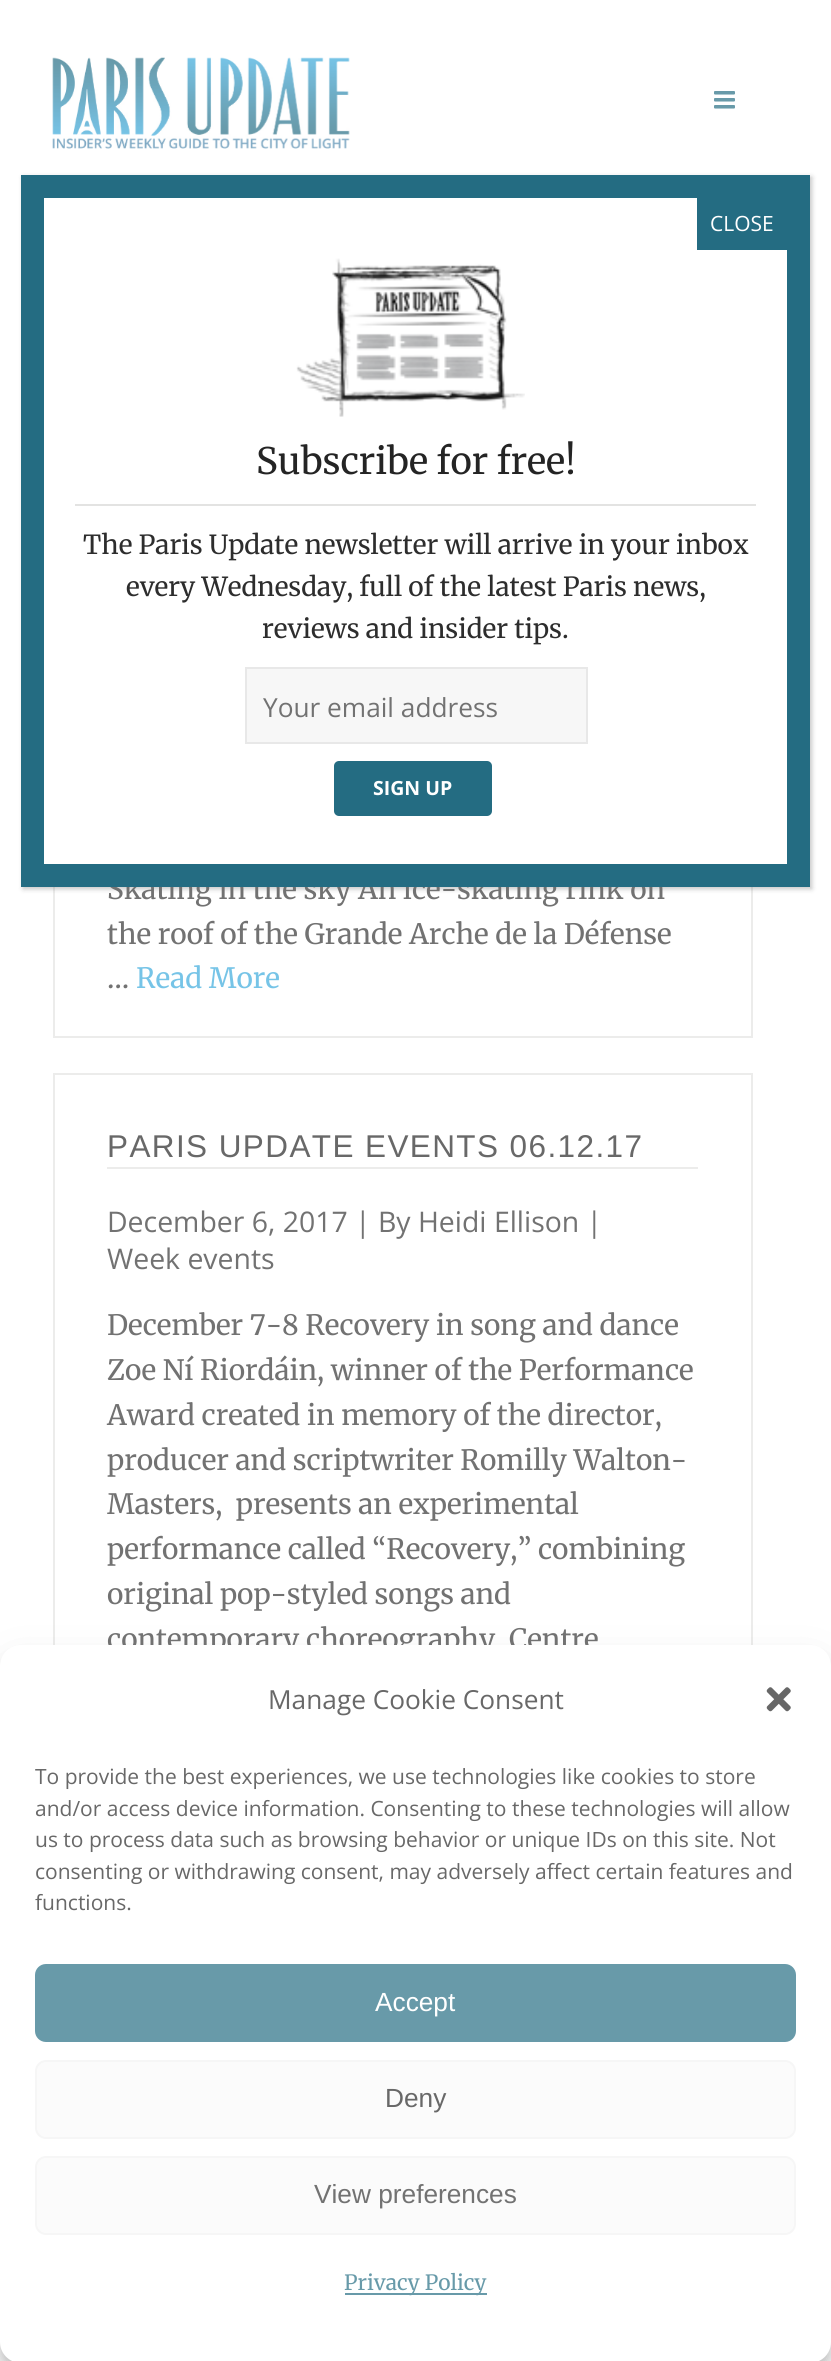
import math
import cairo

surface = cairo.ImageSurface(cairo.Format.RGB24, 831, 2361)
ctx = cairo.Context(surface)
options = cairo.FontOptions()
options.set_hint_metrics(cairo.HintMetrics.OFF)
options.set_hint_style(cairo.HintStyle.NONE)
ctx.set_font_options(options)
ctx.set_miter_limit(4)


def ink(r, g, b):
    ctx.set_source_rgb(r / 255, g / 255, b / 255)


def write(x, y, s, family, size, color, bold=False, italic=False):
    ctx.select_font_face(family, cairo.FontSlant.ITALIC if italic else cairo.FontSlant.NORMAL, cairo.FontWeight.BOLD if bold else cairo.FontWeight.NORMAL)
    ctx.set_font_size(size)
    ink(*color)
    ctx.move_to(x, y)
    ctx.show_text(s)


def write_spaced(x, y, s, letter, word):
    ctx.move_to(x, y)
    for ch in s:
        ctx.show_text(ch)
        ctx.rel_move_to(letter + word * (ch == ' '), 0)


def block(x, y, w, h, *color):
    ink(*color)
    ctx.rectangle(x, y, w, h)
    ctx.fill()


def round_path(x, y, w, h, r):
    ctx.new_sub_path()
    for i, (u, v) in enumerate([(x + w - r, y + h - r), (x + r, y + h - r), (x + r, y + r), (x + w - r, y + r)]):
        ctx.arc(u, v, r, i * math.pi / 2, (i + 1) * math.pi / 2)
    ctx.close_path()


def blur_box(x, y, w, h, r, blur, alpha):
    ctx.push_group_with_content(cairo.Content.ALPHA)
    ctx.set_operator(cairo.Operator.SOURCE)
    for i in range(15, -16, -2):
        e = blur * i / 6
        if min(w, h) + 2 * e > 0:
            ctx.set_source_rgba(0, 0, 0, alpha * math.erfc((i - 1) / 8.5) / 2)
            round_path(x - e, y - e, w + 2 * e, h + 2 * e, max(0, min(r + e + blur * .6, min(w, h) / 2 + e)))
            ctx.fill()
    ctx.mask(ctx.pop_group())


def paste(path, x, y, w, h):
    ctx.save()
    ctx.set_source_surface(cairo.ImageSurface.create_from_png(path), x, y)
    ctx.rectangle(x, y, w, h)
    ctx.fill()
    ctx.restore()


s1 = dict(family="Merriweather Light", size=28, color=(114, 114, 114))
s2 = dict(family="Open Sans", size=21, color=(255, 255, 255))
s3 = dict(family="Merriweather Light", size=36.5, color=(36, 36, 36))
s4 = dict(family="Merriweather Light", size=26.25, color=(45, 45, 45))
s5 = dict(family="Open Sans", size=26.25, color=(114, 114, 114))
s6 = dict(family="Open Sans", size=19.5, color=(255, 255, 255), bold=True)
s7 = dict(family="Merriweather Light", size=28, color=(118, 196, 231))
s8 = dict(family="Open Sans", size=28.4, color=(114, 114, 114))
s9 = dict(family="Open Sans", size=26.25, color=(104, 104, 104))
s10 = dict(family="Open Sans", size=21, color=(104, 104, 104))
s11 = dict(family="Liberation Sans", size=26.25, color=(255, 255, 255))
s12 = dict(family="Liberation Sans", size=26.25, color=(104, 104, 104))
s13 = dict(family="Liberation Sans", size=26.25, color=(114, 114, 114))
s14 = dict(family="Merriweather Light", size=21, color=(104, 154, 169))

ink(255, 255, 255)
ctx.paint()
ctx.rectangle(54, 414, 698, 623)
ink(236, 236, 235)
ctx.stroke()
ink(2, 2, 2)
blur_box(23, 177, 789, 712, 0, 2.5, 0.23)
write(107, 899, "Skating in the sky An ice-skating rink on", **s1)
ink(255, 255, 255)
ctx.rectangle(32.5, 186.5, 766, 689)
ctx.fill_preserve()
ink(36, 108, 130)
ctx.set_line_width(23)
ctx.stroke()
block(697, 198, 90, 52, 36, 108, 130)
write(710, 231, "CLOSE", **s2)
paste("pic1.png", 296, 258, 229, 159)
block(75, 504, 681, 2, 227, 227, 226)
write(256, 474, "Subscribe for free!", **s3)
write(83, 554, "The Paris Update newsletter will arrive in your inbox", **s4)
write(126, 596, "every Wednesday, full of the latest Paris news,", **s4)
write(262, 638, "reviews and insider tips.", **s4)
ink(247, 247, 247)
ctx.rectangle(246, 668, 341, 75)
ctx.fill_preserve()
ink(232, 232, 232)
ctx.set_line_width(2)
ctx.stroke()
write(263, 717, "Your email address", **s5)
ink(36, 108, 130)
round_path(334, 761, 158, 55, 5)
ctx.fill()
write(373, 795, "SIGN UP", **s6)
paste("pic2.png", 52, 57, 298, 92)
paste("pic3.png", 714, 91, 21, 18)
write(107, 944, "the roof of the Grande Arche de la Défense", **s1)
write(107, 988, "…", **s1)
write(136, 988, "Read More", **s7)
ctx.rectangle(54, 1074, 698, 668)
ink(236, 236, 235)
ctx.stroke()
block(107, 1167, 591, 2, 236, 236, 235)
ctx.select_font_face("Liberation Sans")
ctx.set_font_size(31.5)
ink(104, 104, 104)
write_spaced(107, 1157, "PARIS UPDATE EVENTS 06.12.17", 1.4, 0)
write(107, 1232, "December 6, 2017 | By Heidi Ellison |", **s8)
write(107, 1269, "Week events", **s8)
write(107, 1335, "December 7-8 Recovery in song and dance", **s1)
write(107, 1380, "Zoe Ní Riordáin, winner of the Performance", **s1)
write(107, 1425, "Award created in memory of the director,", **s1)
write(107, 1470, "producer and scriptwriter Romilly Walton-", **s1)
write(107, 1514, "Masters,  presents an experimental", **s1)
write(107, 1559, "performance called “Recovery,” combining", **s1)
write(107, 1604, "original pop-styled songs and", **s1)
write(107, 1649, "contemporary choreography. Centre", **s1)
ink(79, 79, 79)
blur_box(0, 1656, 831, 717, 21, 5, 0.23)
blur_box(0, 1663, 831, 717, 21, 17.5, 0.19)
ink(255, 255, 255)
round_path(0, 1645, 831, 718, 21)
ctx.fill()
write(268, 1709, "Manage Cookie Consent", **s9)
paste("pic4.png", 766, 1687, 25, 25)
write(35, 1784, "To provide the best experiences, we use technologies like cookies to store", **s10)
write(35, 1816, "and/or access device information. Consenting to these technologies will allow", **s10)
write(35, 1847, "us to process data such as browsing behavior or unique IDs on this site. Not", **s10)
write(35, 1879, "consenting or withdrawing consent, may adversely affect certain features and", **s10)
write(35, 1910, "functions.", **s10)
ink(104, 154, 169)
round_path(36, 1965, 759, 76, 10)
ctx.fill_preserve()
ctx.stroke()
write(375, 2011, "Accept", **s11)
ink(251, 251, 251)
round_path(36, 2061, 759, 77, 10)
ctx.fill_preserve()
ink(246, 246, 246)
ctx.stroke()
write(385, 2107, "Deny", **s12)
ink(251, 251, 251)
round_path(36, 2157, 759, 77, 10)
ctx.fill_preserve()
ink(246, 246, 246)
ctx.stroke()
write(314, 2203, "View preferences", **s13)
block(345, 2293, 142, 2, 104, 154, 169)
write(344, 2290, "Privacy Policy", **s14)
surface.write_to_png("screenshot.png")
